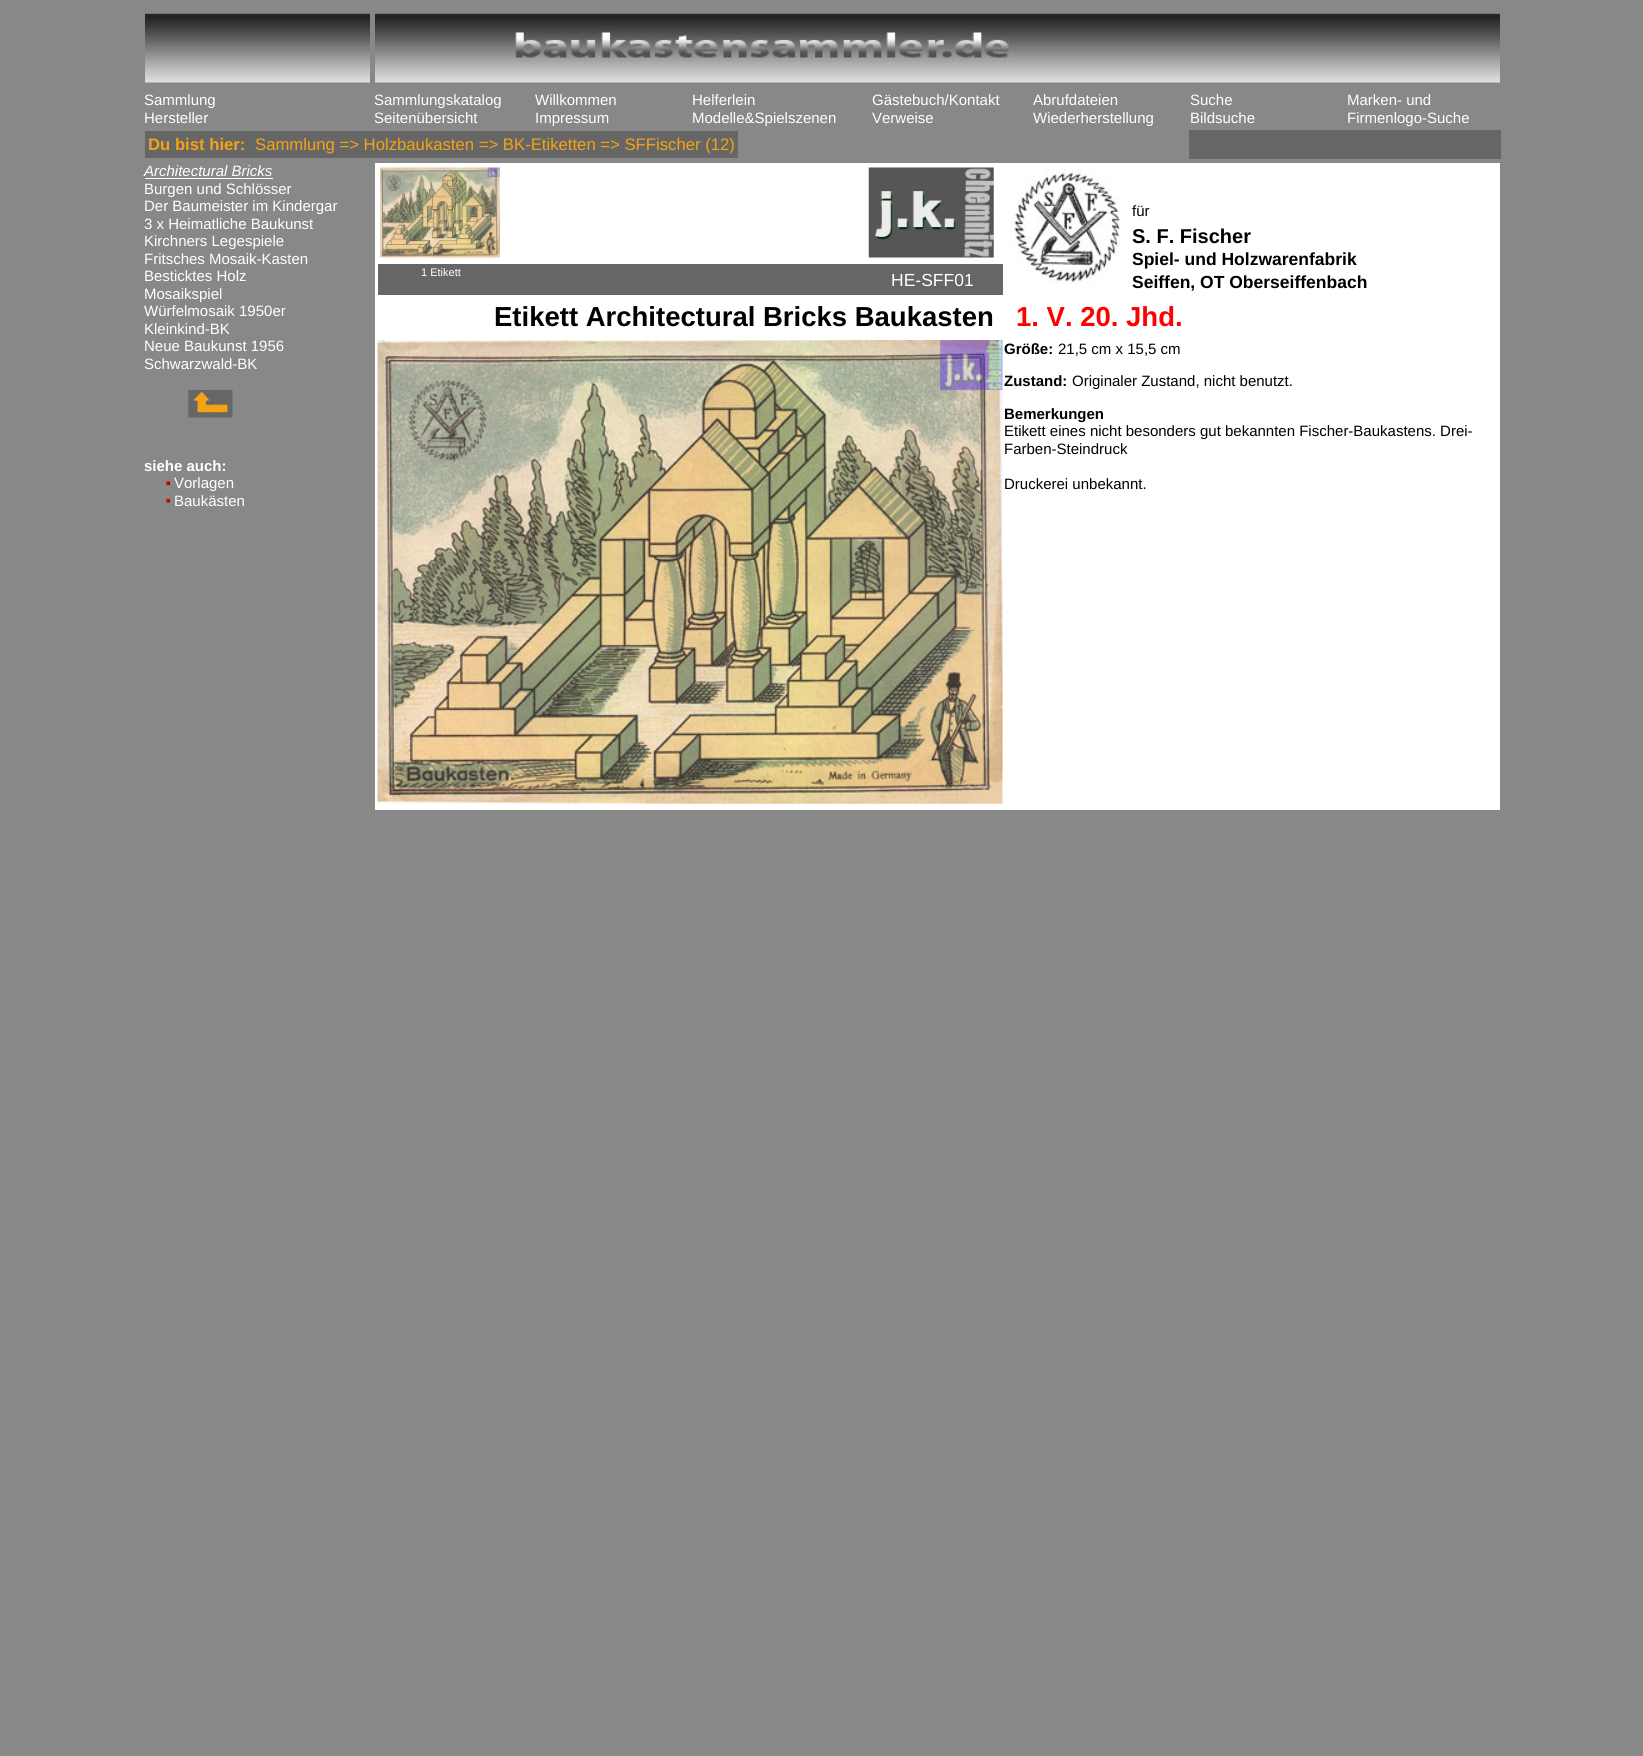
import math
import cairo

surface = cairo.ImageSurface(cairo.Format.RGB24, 1643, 1756)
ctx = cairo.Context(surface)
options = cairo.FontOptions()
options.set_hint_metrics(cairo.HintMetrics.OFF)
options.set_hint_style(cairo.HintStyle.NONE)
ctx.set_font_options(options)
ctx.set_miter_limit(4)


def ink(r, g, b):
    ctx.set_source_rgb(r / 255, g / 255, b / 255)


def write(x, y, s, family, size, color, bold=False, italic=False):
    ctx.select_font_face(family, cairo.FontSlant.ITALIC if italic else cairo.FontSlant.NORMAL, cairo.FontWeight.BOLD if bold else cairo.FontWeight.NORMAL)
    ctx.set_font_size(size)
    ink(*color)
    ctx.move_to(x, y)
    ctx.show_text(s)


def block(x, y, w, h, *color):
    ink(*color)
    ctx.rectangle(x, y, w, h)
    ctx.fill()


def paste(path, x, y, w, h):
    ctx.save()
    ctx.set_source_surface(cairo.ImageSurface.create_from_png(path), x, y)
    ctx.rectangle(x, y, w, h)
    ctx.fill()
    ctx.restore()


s1 = dict(family="Liberation Sans", size=15, color=(255, 255, 255))
s2 = dict(family="Liberation Sans", size=16.7, color=(244, 163, 21), bold=True)
s3 = dict(family="Liberation Sans", size=16.7, color=(244, 163, 21))
s4 = dict(family="Liberation Sans", size=15, color=(255, 255, 255), italic=True)
s5 = dict(family="Liberation Sans", size=15, color=(255, 255, 255), bold=True)
s6 = dict(family="Liberation Sans", size=11, color=(255, 255, 255))
s7 = dict(family="Liberation Sans", size=17.5, color=(255, 255, 255))
s8 = dict(family="Liberation Sans", size=15, color=(0, 0, 0))
s9 = dict(family="Liberation Sans", size=20, color=(0, 0, 0), bold=True)
s10 = dict(family="Liberation Sans", size=17.5, color=(0, 0, 0), bold=True)
s11 = dict(family="Liberation Sans", size=27.5, color=(0, 0, 0), bold=True)
s12 = dict(family="Liberation Sans", size=27.5, color=(255, 0, 0), bold=True)
s13 = dict(family="Liberation Sans", size=15, color=(0, 0, 0), bold=True)

ink(136, 136, 136)
ctx.paint()
paste("pic1.png", 145, 13, 225, 70)
paste("pic2.png", 375, 13, 1125, 70)
write(144, 105, "Sammlung", **s1)
write(144, 123, "Hersteller", **s1)
write(374, 105, "Sammlungskatalog", **s1)
write(374, 123, "Seitenübersicht", **s1)
write(535, 105, "Willkommen", **s1)
write(535, 123, "Impressum", **s1)
write(692, 105, "Helferlein", **s1)
write(692, 123, "Modelle&Spielszenen", **s1)
write(872, 105, "Gästebuch/Kontakt", **s1)
write(872, 123, "Verweise", **s1)
write(1033, 105, "Abrufdateien", **s1)
write(1033, 123, "Wiederherstellung", **s1)
write(1190, 105, "Suche", **s1)
write(1190, 123, "Bildsuche", **s1)
write(1347, 105, "Marken- und", **s1)
write(1347, 123, "Firmenlogo-Suche", **s1)
block(145, 131, 593, 27, 102, 102, 102)
write(148, 150, "Du bist hier:", **s2)
write(255, 150, "Sammlung => Holzbaukasten => BK-Etiketten => SFFischer (12)", **s3)
block(1189, 130, 312, 29, 102, 102, 102)
write(144, 176, "Architectural Bricks", **s4)
block(145, 178, 128, 1, 255, 255, 255)
write(144, 194, "Burgen und Schlösser", **s1)
write(144, 211, "Der Baumeister im Kindergar", **s1)
write(144, 229, "3 x Heimatliche Baukunst", **s1)
write(144, 246, "Kirchners Legespiele", **s1)
write(144, 264, "Fritsches Mosaik-Kasten", **s1)
write(144, 281, "Besticktes Holz", **s1)
write(144, 299, "Mosaikspiel", **s1)
write(144, 316, "Würfelmosaik 1950er", **s1)
write(144, 334, "Kleinkind-BK", **s1)
write(144, 351, "Neue Baukunst 1956", **s1)
write(144, 369, "Schwarzwald-BK", **s1)
paste("pic3.png", 188, 390, 45, 28)
write(144, 471, "siehe auch:", **s5)
paste("pic4.png", 166, 481, 4, 5)
write(174, 488, "Vorlagen", **s1)
paste("pic5.png", 166, 498, 4, 5)
write(174, 506, "Baukästen", **s1)
block(375, 163, 1125, 647, 255, 255, 255)
paste("pic6.png", 380, 167, 120, 91)
paste("pic7.png", 868, 167, 126, 91)
block(378, 264, 625, 31, 102, 102, 102)
write(421, 276, "1 Etikett", **s6)
write(891, 286, "HE-SFF01", **s7)
paste("pic8.png", 1009, 169, 112, 115)
write(1132, 216, "für", **s8)
write(1132, 243, "S. F. Fischer", **s9)
write(1132, 265, "Spiel- und Holzwarenfabrik", **s10)
write(1132, 288, "Seiffen, OT Oberseiffenbach", **s10)
write(494, 326, "Etikett Architectural Bricks Baukasten", **s11)
write(1016, 326, "1. V. 20. Jhd.", **s12)
paste("pic9.png", 377, 340, 626, 464)
write(1004, 354, "Größe:", **s13)
write(1058, 354, "21,5 cm x 15,5 cm", **s8)
write(1004, 386, "Zustand:", **s13)
write(1072, 386, "Originaler Zustand, nicht benutzt.", **s8)
write(1004, 419, "Bemerkungen", **s13)
write(1004, 436, "Etikett eines nicht besonders gut bekannten Fischer-Baukastens. Drei-", **s8)
write(1004, 454, "Farben-Steindruck", **s8)
write(1004, 489, "Druckerei unbekannt.", **s8)
surface.write_to_png("screenshot.png")
